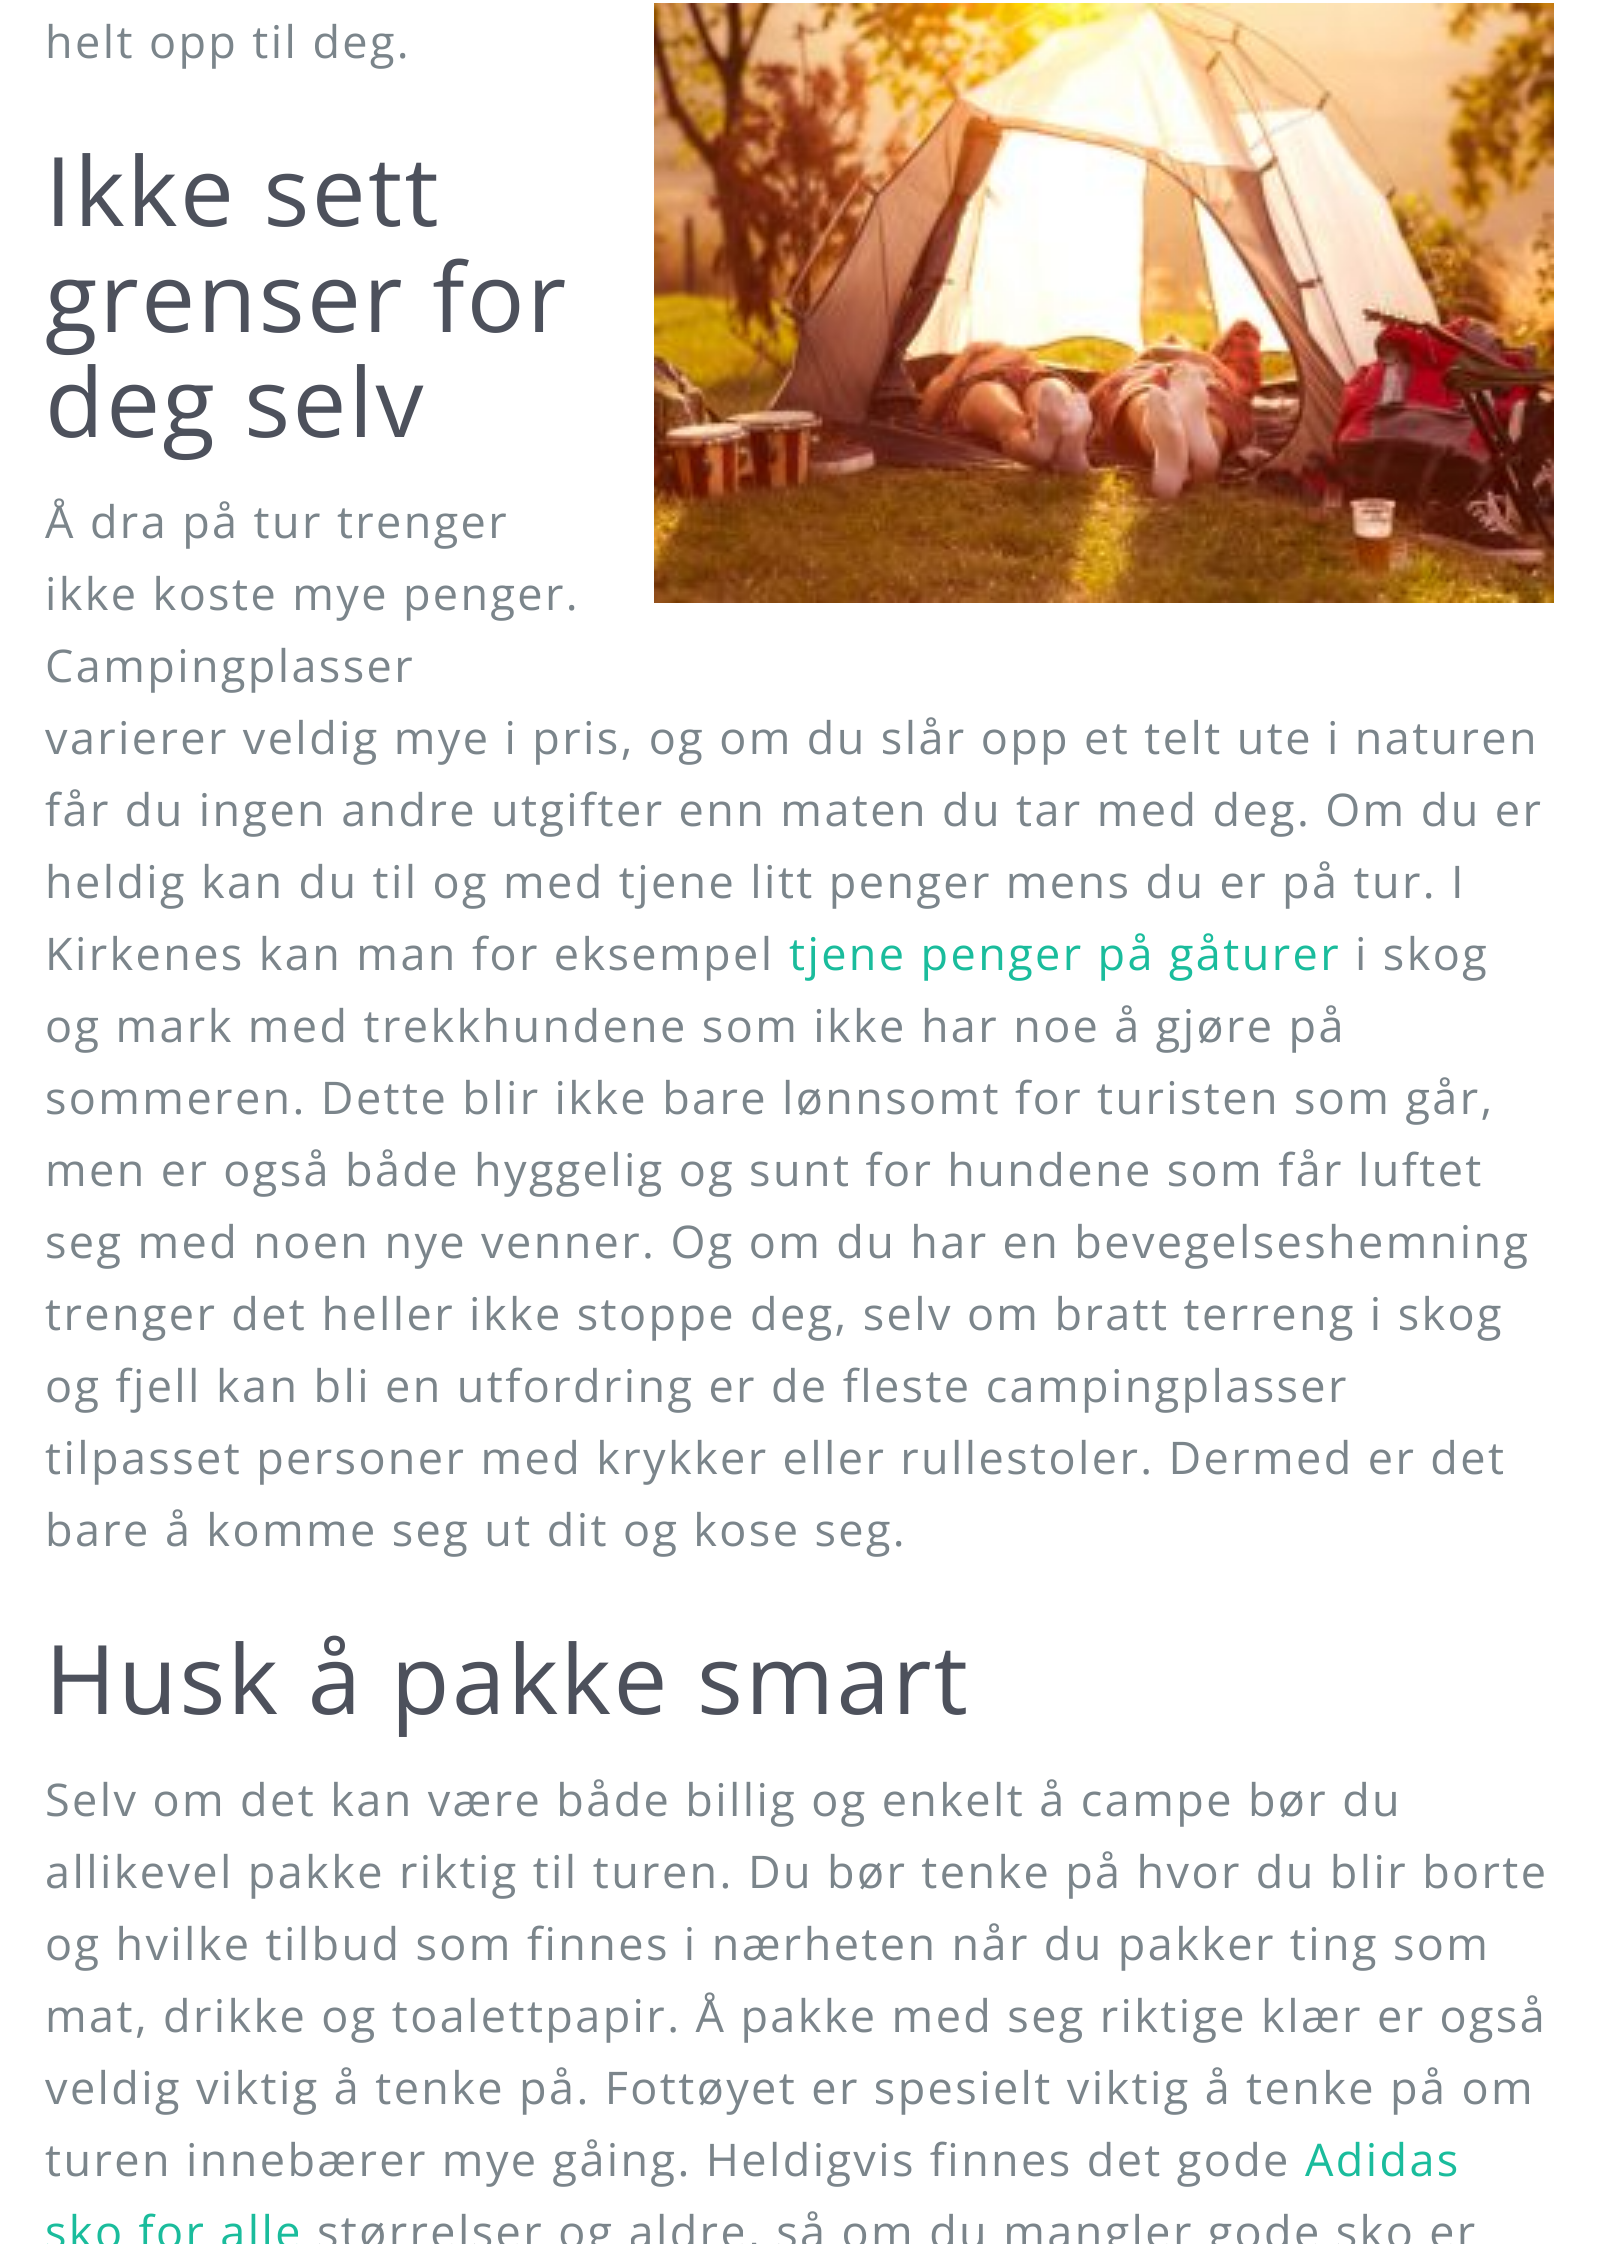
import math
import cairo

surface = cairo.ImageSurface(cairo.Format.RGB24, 1597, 2244)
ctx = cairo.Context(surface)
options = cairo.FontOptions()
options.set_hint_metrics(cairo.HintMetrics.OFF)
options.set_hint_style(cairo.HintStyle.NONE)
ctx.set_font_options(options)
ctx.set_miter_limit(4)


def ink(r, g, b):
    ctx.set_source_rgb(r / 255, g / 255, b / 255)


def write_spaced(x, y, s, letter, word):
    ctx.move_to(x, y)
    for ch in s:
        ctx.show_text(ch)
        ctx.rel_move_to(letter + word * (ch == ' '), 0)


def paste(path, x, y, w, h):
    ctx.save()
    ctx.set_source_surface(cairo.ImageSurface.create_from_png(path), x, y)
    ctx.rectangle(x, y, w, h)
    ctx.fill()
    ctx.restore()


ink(255, 255, 255)
ctx.paint()
ctx.select_font_face("Open Sans")
ctx.set_font_size(45)
ink(123, 133, 139)
write_spaced(45, 58, "helt opp til deg.", 2.4, 0)
paste("pic1.png", 654, 3, 900, 600)
ctx.set_font_size(96)
ink(77, 81, 92)
write_spaced(45, 226, "Ikke sett", 2.4, 0)
write_spaced(45, 332, "grenser for", 2.4, 0)
write_spaced(45, 437, "deg selv", 2.4, 0)
ctx.set_font_size(45)
ink(123, 133, 139)
write_spaced(45, 538, "Å dra på tur trenger", 2.4, 0)
write_spaced(45, 610, "ikke koste mye penger.", 2.4, 0)
write_spaced(45, 682, "Campingplasser", 2.4, 0)
write_spaced(45, 754, "varierer veldig mye i pris, og om du slår opp et telt ute i naturen", 2.4, 0)
write_spaced(45, 826, "får du ingen andre utgifter enn maten du tar med deg. Om du er", 2.4, 0)
write_spaced(45, 898, "heldig kan du til og med tjene litt penger mens du er på tur. I", 2.4, 0)
write_spaced(45, 970, "Kirkenes kan man for eksempel", 2.4, 0)
ink(26, 188, 156)
write_spaced(789, 970, "tjene penger på gåturer", 2.4, 0)
ink(123, 133, 139)
write_spaced(1355, 970, "i skog", 2.4, 0)
write_spaced(45, 1042, "og mark med trekkhundene som ikke har noe å gjøre på", 2.4, 0)
write_spaced(45, 1114, "sommeren. Dette blir ikke bare lønnsomt for turisten som går,", 2.4, 0)
write_spaced(45, 1186, "men er også både hyggelig og sunt for hundene som får luftet", 2.4, 0)
write_spaced(45, 1258, "seg med noen nye venner. Og om du har en bevegelseshemning", 2.4, 0)
write_spaced(45, 1330, "trenger det heller ikke stoppe deg, selv om bratt terreng i skog", 2.4, 0)
write_spaced(45, 1402, "og fjell kan bli en utfordring er de fleste campingplasser", 2.4, 0)
write_spaced(45, 1474, "tilpasset personer med krykker eller rullestoler. Dermed er det", 2.4, 0)
write_spaced(45, 1546, "bare å komme seg ut dit og kose seg.", 2.4, 0)
ctx.set_font_size(96)
ink(77, 81, 92)
write_spaced(45, 1714, "Husk å pakke smart", 2.4, 0)
ctx.set_font_size(45)
ink(123, 133, 139)
write_spaced(45, 1816, "Selv om det kan være både billig og enkelt å campe bør du", 2.4, 0)
write_spaced(45, 1888, "allikevel pakke riktig til turen. Du bør tenke på hvor du blir borte", 2.4, 0)
write_spaced(45, 1960, "og hvilke tilbud som finnes i nærheten når du pakker ting som", 2.4, 0)
write_spaced(45, 2032, "mat, drikke og toalettpapir. Å pakke med seg riktige klær er også", 2.4, 0)
write_spaced(45, 2104, "veldig viktig å tenke på. Fottøyet er spesielt viktig å tenke på om", 2.4, 0)
write_spaced(45, 2176, "turen innebærer mye gåing. Heldigvis finnes det gode", 2.4, 0)
ink(26, 188, 156)
write_spaced(1305, 2176, "Adidas", 2.4, 0)
write_spaced(45, 2248, "sko for alle", 2.4, 0)
ink(123, 133, 139)
write_spaced(317, 2248, "størrelser og aldre, så om du mangler gode sko er", 2.4, 0)
surface.write_to_png("screenshot.png")
